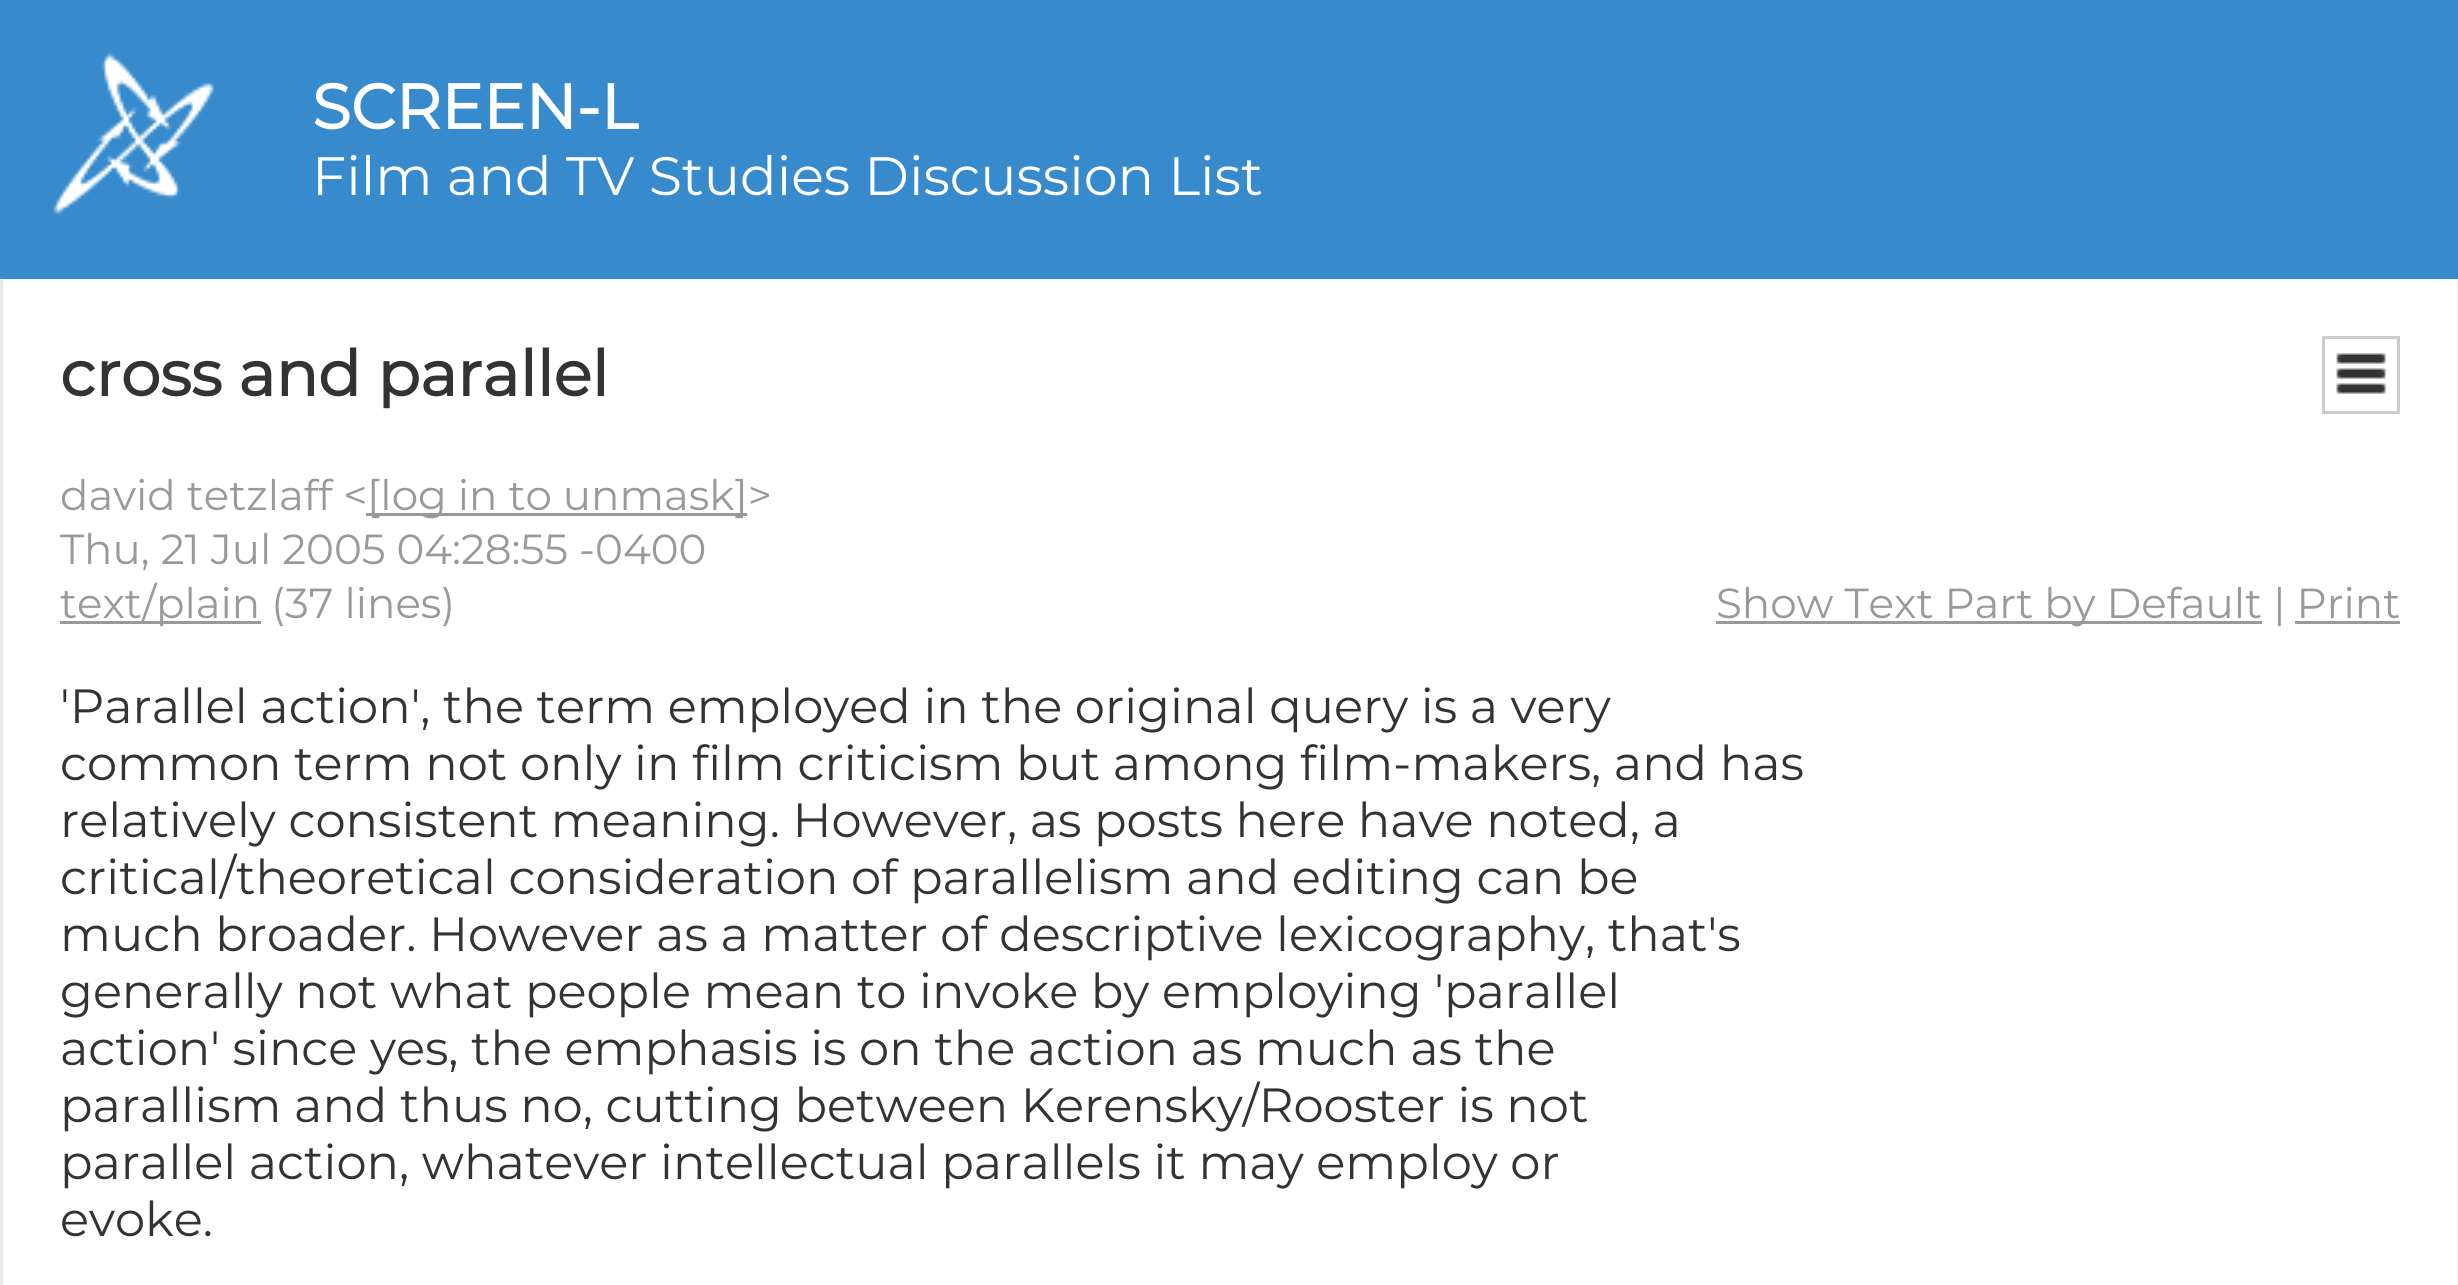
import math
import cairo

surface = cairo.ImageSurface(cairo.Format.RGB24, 2458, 1285)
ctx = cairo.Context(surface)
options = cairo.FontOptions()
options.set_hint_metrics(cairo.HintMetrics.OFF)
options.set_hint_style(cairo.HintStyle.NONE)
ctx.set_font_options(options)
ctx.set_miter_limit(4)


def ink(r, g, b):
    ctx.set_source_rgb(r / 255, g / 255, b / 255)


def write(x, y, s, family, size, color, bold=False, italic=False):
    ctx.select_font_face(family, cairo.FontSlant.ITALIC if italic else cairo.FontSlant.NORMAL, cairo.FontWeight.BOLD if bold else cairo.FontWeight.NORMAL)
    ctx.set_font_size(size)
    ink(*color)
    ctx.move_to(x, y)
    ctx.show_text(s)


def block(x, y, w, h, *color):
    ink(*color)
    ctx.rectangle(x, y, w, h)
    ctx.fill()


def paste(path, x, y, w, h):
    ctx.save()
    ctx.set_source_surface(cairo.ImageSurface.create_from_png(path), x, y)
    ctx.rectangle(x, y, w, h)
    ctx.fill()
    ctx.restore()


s1 = dict(family="Montserrat", size=63, color=(255, 255, 255), bold=True)
s2 = dict(family="Montserrat Thin", size=54, color=(255, 255, 255))
s3 = dict(family="Montserrat", size=63, color=(51, 51, 51), bold=True)
s4 = dict(family="Montserrat Thin", size=42, color=(153, 153, 153))
s5 = dict(family="Montserrat Thin", size=48, color=(51, 51, 51))

ink(55, 138, 204)
ctx.paint()
paste("pic1.png", 53, 53, 161, 161)
write(312, 129, "SCREEN-L", **s1)
write(312, 195, "Film and TV Studies Discussion List", **s2)
block(3, 279, 2454, 1006, 255, 255, 255)
block(2457, 279, 1, 1006, 234, 234, 234)
block(0, 279, 3, 1006, 234, 234, 234)
ctx.rectangle(2323.5, 337.5, 75, 75)
ink(204, 204, 204)
ctx.set_line_width(3)
ctx.stroke()
paste("pic2.png", 2336, 353, 50, 41)
write(60, 396, "cross and parallel", **s3)
write(60, 510, "david tetzlaff <", **s4)
block(366, 513, 381, 3, 153, 153, 153)
write(367, 510, "[log in to unmask]>", **s4)
write(60, 564, "Thu, 21 Jul 2005 04:28:55 -0400", **s4)
block(60, 621, 201, 3, 153, 153, 153)
write(60, 618, "text/plain (37 lines)", **s4)
block(1716, 621, 546, 3, 153, 153, 153)
write(1716, 618, "Show Text Part by Default | Print", **s4)
block(2295, 621, 105, 3, 153, 153, 153)
write(60, 723, "'Parallel action', the term employed in the original query is a very", **s5)
write(60, 780, "common term not only in film criticism but among film-makers, and has", **s5)
write(60, 837, "relatively consistent meaning. However, as posts here have noted, a", **s5)
write(60, 894, "critical/theoretical consideration of parallelism and editing can be", **s5)
write(60, 951, "much broader. However as a matter of descriptive lexicography, that's", **s5)
write(60, 1008, "generally not what people mean to invoke by employing 'parallel", **s5)
write(60, 1065, "action' since yes, the emphasis is on the action as much as the", **s5)
write(60, 1122, "parallism and thus no, cutting between Kerensky/Rooster is not", **s5)
write(60, 1179, "parallel action, whatever intellectual parallels it may employ or", **s5)
write(60, 1236, "evoke.", **s5)
surface.write_to_png("screenshot.png")
